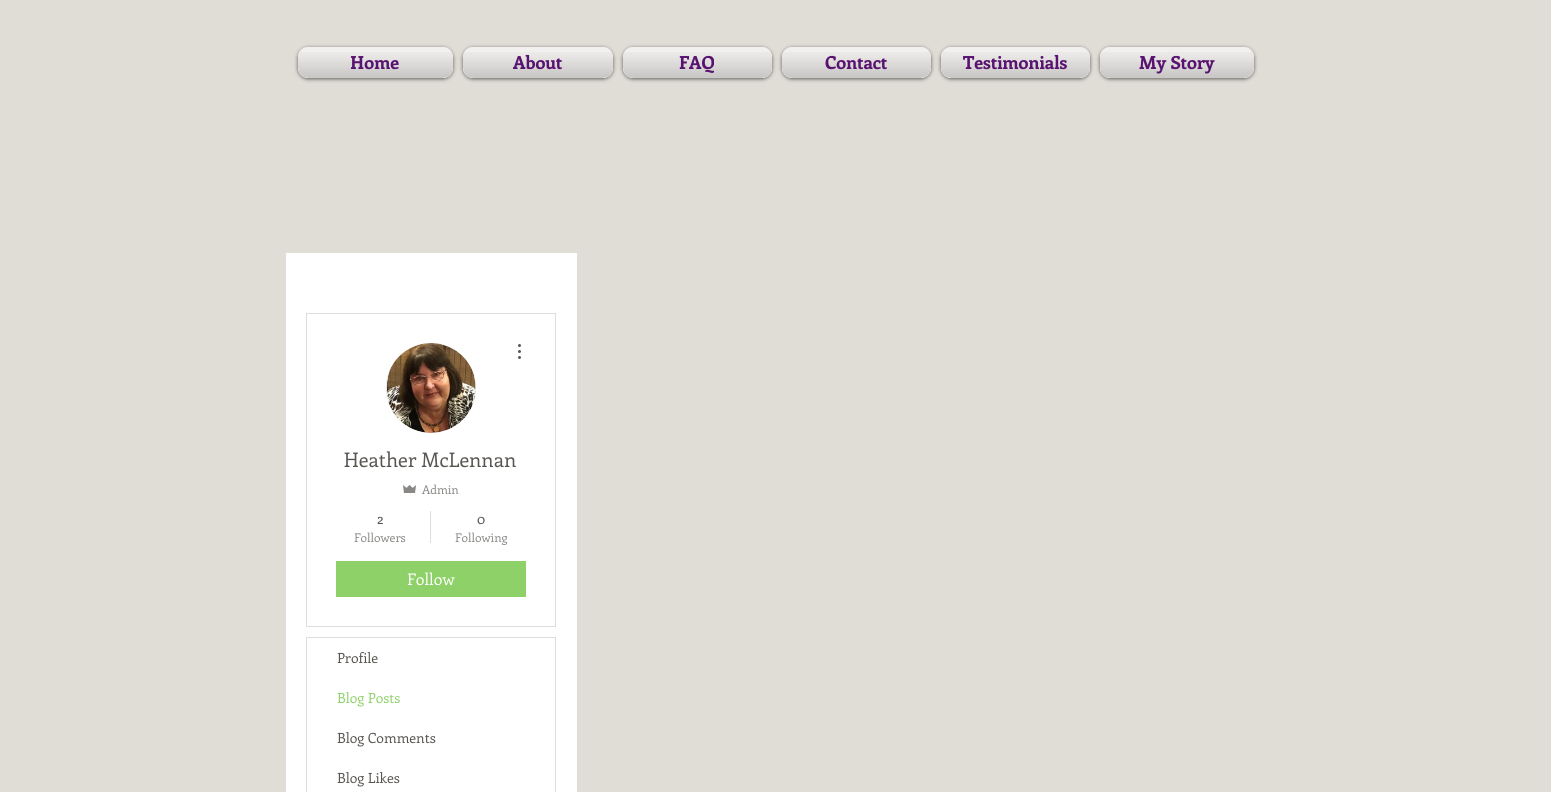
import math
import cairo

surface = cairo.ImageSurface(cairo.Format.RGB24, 1551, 792)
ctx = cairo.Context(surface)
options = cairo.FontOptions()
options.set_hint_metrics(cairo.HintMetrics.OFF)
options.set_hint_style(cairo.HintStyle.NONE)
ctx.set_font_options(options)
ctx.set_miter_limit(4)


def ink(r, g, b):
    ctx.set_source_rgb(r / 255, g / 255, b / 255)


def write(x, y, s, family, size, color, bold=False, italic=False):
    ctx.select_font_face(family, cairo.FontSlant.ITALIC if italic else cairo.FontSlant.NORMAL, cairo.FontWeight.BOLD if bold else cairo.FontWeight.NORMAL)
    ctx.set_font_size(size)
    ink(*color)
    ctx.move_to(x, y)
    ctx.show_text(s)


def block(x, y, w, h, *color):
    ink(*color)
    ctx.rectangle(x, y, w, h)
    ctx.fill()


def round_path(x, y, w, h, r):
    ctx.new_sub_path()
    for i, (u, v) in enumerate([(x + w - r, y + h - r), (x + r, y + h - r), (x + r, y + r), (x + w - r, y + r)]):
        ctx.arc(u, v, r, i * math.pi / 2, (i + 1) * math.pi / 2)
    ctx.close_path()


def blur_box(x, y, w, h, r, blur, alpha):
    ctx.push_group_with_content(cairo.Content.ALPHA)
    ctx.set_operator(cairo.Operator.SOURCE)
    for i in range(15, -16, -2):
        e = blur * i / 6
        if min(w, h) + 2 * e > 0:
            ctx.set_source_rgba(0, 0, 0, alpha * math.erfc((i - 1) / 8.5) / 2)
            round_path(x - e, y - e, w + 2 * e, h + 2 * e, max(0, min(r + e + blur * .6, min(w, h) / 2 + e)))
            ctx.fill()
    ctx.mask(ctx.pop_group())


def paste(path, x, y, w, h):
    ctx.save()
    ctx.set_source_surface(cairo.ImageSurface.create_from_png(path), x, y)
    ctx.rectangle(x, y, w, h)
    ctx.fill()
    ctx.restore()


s1 = dict(family="Enriqueta", size=18, color=(88, 18, 112), bold=True)
s2 = dict(family="Enriqueta", size=20, color=(88, 85, 81))
s3 = dict(family="Enriqueta", size=12, color=(138, 136, 133))
s4 = dict(family="Enriqueta", size=14, color=(88, 85, 81))
s5 = dict(family="Enriqueta", size=16, color=(255, 255, 255))
s6 = dict(family="Enriqueta", size=14, color=(143, 209, 105))

ink(224, 221, 215)
ctx.paint()
ctx.save()
ctx.set_fill_rule(cairo.FillRule.EVEN_ODD)
ctx.new_path()
ctx.move_to(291, 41)
ctx.line_to(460, 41)
ctx.line_to(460, 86)
ctx.line_to(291, 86)
ctx.close_path()
ctx.move_to(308, 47)
ctx.line_to(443, 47)
ctx.curve_to(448.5, 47, 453, 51.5, 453, 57)
ctx.line_to(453, 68)
ctx.curve_to(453, 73.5, 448.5, 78, 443, 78)
ctx.line_to(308, 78)
ctx.curve_to(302.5, 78, 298, 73.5, 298, 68)
ctx.line_to(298, 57)
ctx.curve_to(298, 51.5, 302.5, 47, 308, 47)
ctx.close_path()
ctx.clip()
ink(0, 0, 0)
blur_box(298, 48, 155, 31, 10, 2, 0.6)
ctx.restore()
ctx.set_source_rgba(1, 1, 1, 0.57)
round_path(298, 47, 155, 31, 10)
ctx.fill()
paste("pic1.png", 298, 52, 155, 26)
write(350, 69, "Home", **s1)
ctx.save()
ctx.set_fill_rule(cairo.FillRule.EVEN_ODD)
ctx.new_path()
ctx.move_to(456, 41)
ctx.line_to(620, 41)
ctx.line_to(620, 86)
ctx.line_to(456, 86)
ctx.close_path()
ctx.move_to(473, 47)
ctx.line_to(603, 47)
ctx.curve_to(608.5, 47, 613, 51.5, 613, 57)
ctx.line_to(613, 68)
ctx.curve_to(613, 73.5, 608.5, 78, 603, 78)
ctx.line_to(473, 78)
ctx.curve_to(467.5, 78, 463, 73.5, 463, 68)
ctx.line_to(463, 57)
ctx.curve_to(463, 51.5, 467.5, 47, 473, 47)
ctx.close_path()
ctx.clip()
ink(0, 0, 0)
blur_box(463, 48, 150, 31, 10, 2, 0.6)
ctx.restore()
ctx.set_source_rgba(1, 1, 1, 0.57)
round_path(463, 47, 150, 31, 10)
ctx.fill()
paste("pic2.png", 463, 52, 150, 26)
write(513, 69, "About", **s1)
ctx.save()
ctx.set_fill_rule(cairo.FillRule.EVEN_ODD)
ctx.new_path()
ctx.move_to(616, 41)
ctx.line_to(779, 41)
ctx.line_to(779, 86)
ctx.line_to(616, 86)
ctx.close_path()
ctx.move_to(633, 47)
ctx.line_to(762, 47)
ctx.curve_to(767.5, 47, 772, 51.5, 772, 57)
ctx.line_to(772, 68)
ctx.curve_to(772, 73.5, 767.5, 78, 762, 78)
ctx.line_to(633, 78)
ctx.curve_to(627.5, 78, 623, 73.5, 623, 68)
ctx.line_to(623, 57)
ctx.curve_to(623, 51.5, 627.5, 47, 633, 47)
ctx.close_path()
ctx.clip()
ink(0, 0, 0)
blur_box(623, 48, 149, 31, 10, 2, 0.6)
ctx.restore()
ctx.set_source_rgba(1, 1, 1, 0.57)
round_path(623, 47, 149, 31, 10)
ctx.fill()
paste("pic3.png", 623, 52, 149, 26)
write(679, 69, "FAQ", **s1)
ctx.save()
ctx.set_fill_rule(cairo.FillRule.EVEN_ODD)
ctx.new_path()
ctx.move_to(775, 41)
ctx.line_to(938, 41)
ctx.line_to(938, 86)
ctx.line_to(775, 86)
ctx.close_path()
ctx.move_to(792, 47)
ctx.line_to(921, 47)
ctx.curve_to(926.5, 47, 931, 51.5, 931, 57)
ctx.line_to(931, 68)
ctx.curve_to(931, 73.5, 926.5, 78, 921, 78)
ctx.line_to(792, 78)
ctx.curve_to(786.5, 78, 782, 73.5, 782, 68)
ctx.line_to(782, 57)
ctx.curve_to(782, 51.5, 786.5, 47, 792, 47)
ctx.close_path()
ctx.clip()
ink(0, 0, 0)
blur_box(782, 48, 149, 31, 10, 2, 0.6)
ctx.restore()
ctx.set_source_rgba(1, 1, 1, 0.57)
round_path(782, 47, 149, 31, 10)
ctx.fill()
paste("pic4.png", 782, 52, 149, 26)
write(825, 69, "Contact", **s1)
ctx.save()
ctx.set_fill_rule(cairo.FillRule.EVEN_ODD)
ctx.new_path()
ctx.move_to(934, 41)
ctx.line_to(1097, 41)
ctx.line_to(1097, 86)
ctx.line_to(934, 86)
ctx.close_path()
ctx.move_to(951, 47)
ctx.line_to(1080, 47)
ctx.curve_to(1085.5, 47, 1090, 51.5, 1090, 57)
ctx.line_to(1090, 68)
ctx.curve_to(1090, 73.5, 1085.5, 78, 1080, 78)
ctx.line_to(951, 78)
ctx.curve_to(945.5, 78, 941, 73.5, 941, 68)
ctx.line_to(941, 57)
ctx.curve_to(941, 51.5, 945.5, 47, 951, 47)
ctx.close_path()
ctx.clip()
ink(0, 0, 0)
blur_box(941, 48, 149, 31, 10, 2, 0.6)
ctx.restore()
ctx.set_source_rgba(1, 1, 1, 0.57)
round_path(941, 47, 149, 31, 10)
ctx.fill()
paste("pic4.png", 941, 52, 149, 26)
write(963, 69, "Testimonials", **s1)
ctx.save()
ctx.set_fill_rule(cairo.FillRule.EVEN_ODD)
ctx.new_path()
ctx.move_to(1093, 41)
ctx.line_to(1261, 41)
ctx.line_to(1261, 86)
ctx.line_to(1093, 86)
ctx.close_path()
ctx.move_to(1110, 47)
ctx.line_to(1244, 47)
ctx.curve_to(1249.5, 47, 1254, 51.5, 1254, 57)
ctx.line_to(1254, 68)
ctx.curve_to(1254, 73.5, 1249.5, 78, 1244, 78)
ctx.line_to(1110, 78)
ctx.curve_to(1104.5, 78, 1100, 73.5, 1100, 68)
ctx.line_to(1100, 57)
ctx.curve_to(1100, 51.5, 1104.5, 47, 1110, 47)
ctx.close_path()
ctx.clip()
ink(0, 0, 0)
blur_box(1100, 48, 154, 31, 10, 2, 0.6)
ctx.restore()
ctx.set_source_rgba(1, 1, 1, 0.57)
round_path(1100, 47, 154, 31, 10)
ctx.fill()
paste("pic5.png", 1100, 52, 154, 26)
write(1139, 69, "My Story", **s1)
block(286, 253, 291, 539, 255, 255, 255)
ctx.rectangle(306.5, 313.5, 249, 313)
ink(222, 221, 220)
ctx.set_line_width(1)
ctx.stroke()
ink(216, 216, 216)
ctx.arc(431, 388, 45, 0, 2 * math.pi)
ctx.fill()
paste("pic6.png", 386, 343, 90, 90)
paste("pic7.png", 518, 344, 3, 15)
write(344, 467, "Heather McLennan", **s2)
paste("pic8.png", 403, 485, 13, 8)
write(422, 494, "Admin", **s3)
write(377, 524, "2", **s4)
write(354, 542, "Followers", **s3)
block(430, 511, 1, 32, 222, 221, 220)
write(477, 524, "0", **s4)
write(455, 542, "Following", **s3)
block(336, 561, 190, 36, 143, 209, 105)
write(407, 585, "Follow", **s5)
ctx.rectangle(306.5, 637.5, 249, 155)
ink(222, 221, 220)
ctx.stroke()
write(337, 663, "Profile", **s4)
write(337, 703, "Blog Posts", **s6)
write(337, 743, "Blog Comments", **s4)
write(337, 783, "Blog Likes", **s4)
surface.write_to_png("screenshot.png")
